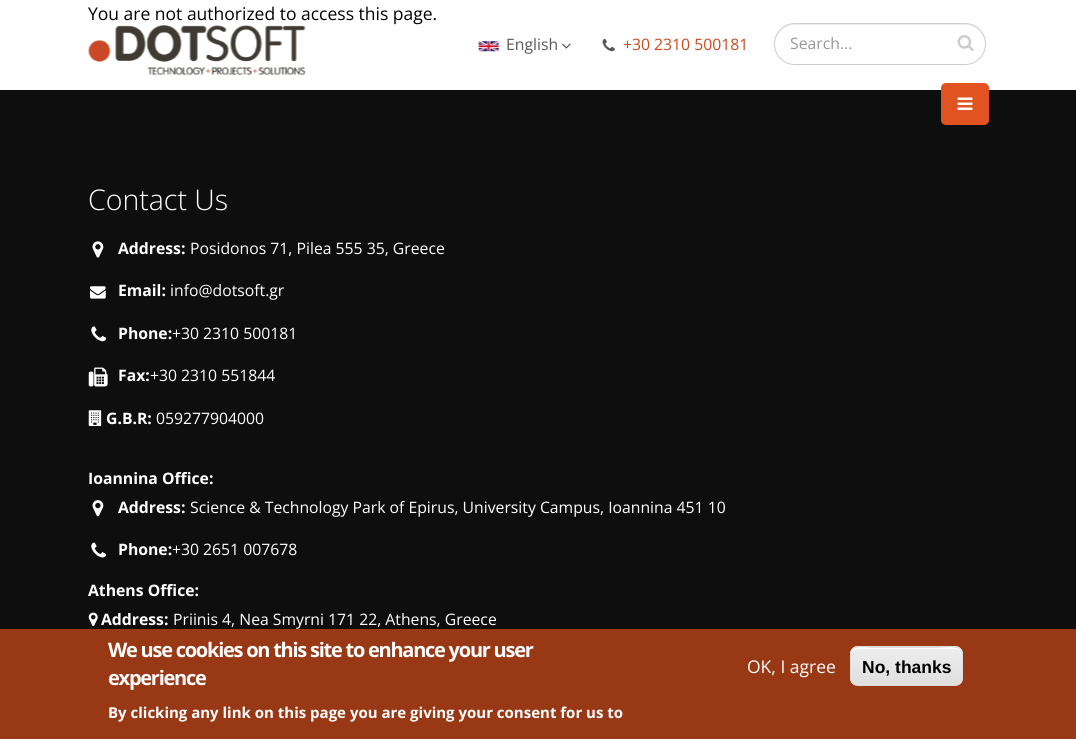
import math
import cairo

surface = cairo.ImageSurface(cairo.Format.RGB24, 1076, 739)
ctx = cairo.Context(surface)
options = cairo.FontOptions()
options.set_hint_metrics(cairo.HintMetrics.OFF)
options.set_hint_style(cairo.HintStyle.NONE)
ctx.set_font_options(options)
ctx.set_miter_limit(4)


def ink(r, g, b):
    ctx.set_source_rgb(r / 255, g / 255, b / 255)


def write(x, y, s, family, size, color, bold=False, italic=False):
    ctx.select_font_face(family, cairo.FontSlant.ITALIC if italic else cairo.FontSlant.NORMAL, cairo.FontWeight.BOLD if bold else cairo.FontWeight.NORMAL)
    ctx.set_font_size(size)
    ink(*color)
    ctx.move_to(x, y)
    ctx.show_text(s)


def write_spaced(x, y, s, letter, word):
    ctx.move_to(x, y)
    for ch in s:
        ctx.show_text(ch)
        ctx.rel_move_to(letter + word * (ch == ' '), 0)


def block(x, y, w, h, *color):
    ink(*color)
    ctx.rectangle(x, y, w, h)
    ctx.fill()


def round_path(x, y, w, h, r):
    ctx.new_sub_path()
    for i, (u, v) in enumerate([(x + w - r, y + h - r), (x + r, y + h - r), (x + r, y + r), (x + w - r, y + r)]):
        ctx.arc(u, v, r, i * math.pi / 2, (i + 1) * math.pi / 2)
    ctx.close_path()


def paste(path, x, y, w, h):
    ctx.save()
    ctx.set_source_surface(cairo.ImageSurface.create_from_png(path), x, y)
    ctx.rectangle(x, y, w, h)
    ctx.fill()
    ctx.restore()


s1 = dict(family="Open Sans", size=17.5, color=(0, 0, 0))
s2 = dict(family="Open Sans", size=15.75, color=(89, 89, 89))
s3 = dict(family="Open Sans", size=15.75, color=(202, 74, 28))
s4 = dict(family="Open Sans", size=15.75, color=(153, 153, 153))
s5 = dict(family="Open Sans Light", size=28.5, color=(255, 255, 255))
s6 = dict(family="Open Sans", size=15.75, color=(255, 255, 255), bold=True)
s7 = dict(family="Open Sans", size=15.75, color=(255, 255, 255))
s8 = dict(family="Open Sans", size=15, color=(255, 255, 255), bold=True)
s9 = dict(family="Open Sans", size=17.5, color=(255, 255, 255))
s10 = dict(family="Liberation Sans", size=17.5, color=(0, 0, 0), bold=True)

ink(255, 255, 255)
ctx.paint()
write(88, 20, "You are not authorized to access this page.", **s1)
paste("pic1.png", 88, 25, 218, 50)
paste("pic2.png", 478, 41, 22, 11)
write(506, 50, "English", **s2)
paste("pic3.png", 562, 43, 9, 6)
paste("pic4.png", 602, 38, 13, 14)
write(623, 50, "+30 2310 500181", **s3)
ink(236, 236, 236)
ctx.new_path()
ctx.move_to(795, 25)
ctx.line_to(965, 25)
ctx.curve_to(976, 25, 985, 34, 985, 45)
ctx.line_to(985, 44)
ctx.curve_to(985, 33, 976, 24, 965, 24)
ctx.line_to(795, 24)
ctx.curve_to(784, 24, 775, 33, 775, 44)
ctx.line_to(775, 45)
ctx.curve_to(775, 34, 784, 25, 795, 25)
ctx.close_path()
ctx.fill()
round_path(774.5, 23.5, 211, 41, 20.5)
ink(204, 204, 204)
ctx.set_line_width(1)
ctx.stroke()
write(790, 49, "Search...", **s4)
paste("pic5.png", 957, 35, 17, 17)
block(0, 90, 1076, 539, 14, 14, 14)
ink(225, 84, 33)
round_path(941, 83, 48, 42, 5)
ctx.fill()
paste("pic6.png", 957, 97, 16, 13)
write(88, 210, "Contact Us", **s5)
paste("pic7.png", 92, 241, 12, 17)
write(118, 254, "Address:", **s6)
write(190, 254, "Posidonos 71, Pilea 555 35, Greece", **s7)
paste("pic8.png", 90, 286, 16, 13)
write(118, 296, "Email:", **s6)
write(170, 296, "info@dotsoft.gr", **s7)
paste("pic9.png", 91, 326, 16, 16)
write(118, 339, "Phone:", **s6)
write(172, 339, "+30 2310 500181", **s7)
paste("pic10.png", 88, 367, 20, 20)
write(118, 381, "Fax:", **s6)
write(150, 381, "+30 2310 551844", **s7)
paste("pic11.png", 88, 410, 14, 16)
write(106, 424, "G.B.R:", **s6)
write(156, 424, "059277904000", **s7)
write(88, 484, "Ιoannina Office:", **s6)
paste("pic12.png", 92, 500, 12, 17)
write(118, 513, "Address:", **s6)
write(190, 513, "Science & Technology Park of Epirus, University Campus, Ioannina 451 10", **s7)
paste("pic13.png", 91, 542, 16, 16)
write(118, 555, "Phone:", **s6)
write(172, 555, "+30 2651 007678", **s7)
write(88, 596, "Athens Office:", **s6)
paste("pic14.png", 88, 612, 10, 15)
write(101, 625, "Address:", **s6)
write(173, 625, "Priinis 4, Nea Smyrni 171 22, Athens, Greece", **s7)
block(0, 629, 1076, 110, 153, 56, 21)
ctx.select_font_face("Open Sans", cairo.FontSlant.NORMAL, cairo.FontWeight.BOLD)
ctx.set_font_size(20)
ink(255, 255, 255)
write_spaced(108, 657, "We use cookies on this site to enhance your user", -1.25, 0)
write_spaced(108, 685, "experience", -1.25, 0)
write(108, 718, "By clicking any link on this page you are giving your consent for us to", **s8)
write(747, 673, "OK, I agree", **s9)
ctx.save()
round_path(850, 646, 113, 40, 8)
ctx.clip()
gradient = cairo.LinearGradient(906, 610, 906, 648)
gradient.add_color_stop_rgba(0.05, 0.929, 0.929, 0.929, 1)
gradient.add_color_stop_rgba(1, 0.875, 0.875, 0.875, 1)
ctx.set_source(gradient)
ctx.rectangle(850, 646, 113, 2)
ctx.fill()
gradient = cairo.LinearGradient(906, 648, 906, 685)
gradient.add_color_stop_rgba(0.05, 0.929, 0.929, 0.929, 1)
gradient.add_color_stop_rgba(1, 0.875, 0.875, 0.875, 1)
ctx.set_source(gradient)
ctx.rectangle(850, 648, 113, 37)
ctx.fill()
ctx.restore()
ctx.new_path()
ctx.move_to(858, 649)
ctx.line_to(955, 649)
ctx.curve_to(958, 649, 961, 652, 961, 655)
ctx.curve_to(961, 644, 945, 648, 939, 648)
ctx.line_to(873, 648)
ctx.curve_to(867, 648, 851, 644, 851, 655)
ctx.curve_to(851, 652, 854, 649, 858, 649)
ctx.close_path()
ctx.fill()
round_path(850.5, 646.5, 112, 39, 7.5)
ink(220, 220, 220)
ctx.stroke()
write(862, 673, "No, thanks", **s10)
surface.write_to_png("screenshot.png")
